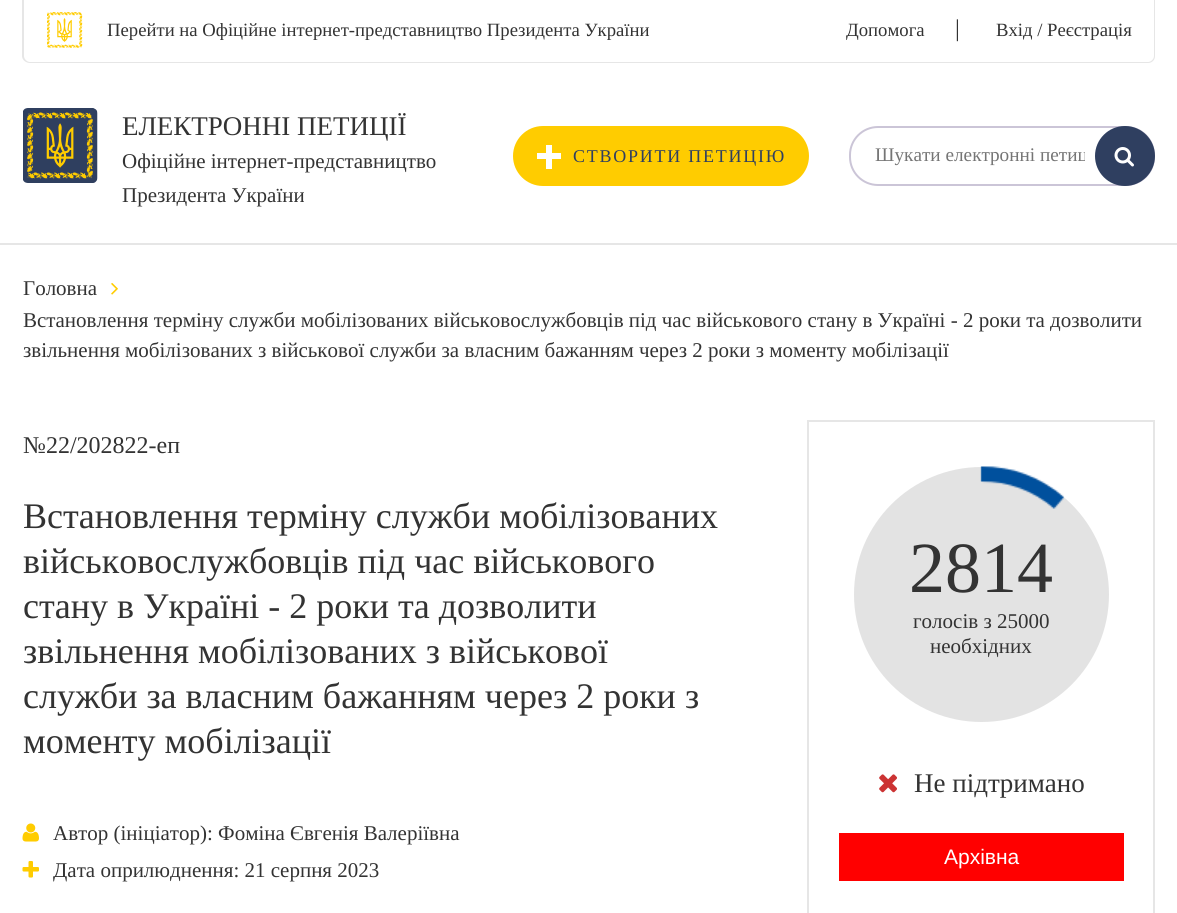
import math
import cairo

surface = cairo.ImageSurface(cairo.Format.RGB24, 1177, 913)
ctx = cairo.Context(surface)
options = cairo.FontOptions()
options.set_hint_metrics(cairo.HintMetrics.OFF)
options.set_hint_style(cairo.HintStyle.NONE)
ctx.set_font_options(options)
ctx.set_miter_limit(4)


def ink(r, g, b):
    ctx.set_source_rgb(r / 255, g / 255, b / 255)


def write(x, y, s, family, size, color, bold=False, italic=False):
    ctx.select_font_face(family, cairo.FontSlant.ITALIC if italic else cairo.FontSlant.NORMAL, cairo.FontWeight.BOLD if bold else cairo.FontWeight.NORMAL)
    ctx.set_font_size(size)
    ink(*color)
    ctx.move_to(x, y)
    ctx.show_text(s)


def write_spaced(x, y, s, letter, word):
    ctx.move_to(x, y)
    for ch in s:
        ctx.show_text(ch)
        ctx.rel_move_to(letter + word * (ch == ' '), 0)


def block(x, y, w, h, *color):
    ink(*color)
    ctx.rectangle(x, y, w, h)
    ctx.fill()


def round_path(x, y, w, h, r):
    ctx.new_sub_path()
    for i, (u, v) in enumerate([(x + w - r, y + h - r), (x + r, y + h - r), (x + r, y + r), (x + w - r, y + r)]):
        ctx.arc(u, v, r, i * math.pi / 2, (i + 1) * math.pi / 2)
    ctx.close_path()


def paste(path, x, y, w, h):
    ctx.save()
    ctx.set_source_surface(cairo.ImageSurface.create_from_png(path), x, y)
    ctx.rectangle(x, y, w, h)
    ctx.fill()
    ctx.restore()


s1 = dict(family="Liberation Serif", size=18.7, color=(51, 51, 51))
s2 = dict(family="Liberation Serif", size=24, color=(51, 51, 51))
s3 = dict(family="Liberation Serif", size=27, color=(51, 51, 51))
s4 = dict(family="Liberation Serif", size=21, color=(51, 51, 51))
s5 = dict(family="Liberation Serif", size=19.25, color=(117, 117, 117))
s6 = dict(family="Liberation Serif", size=36, color=(51, 51, 51))
s7 = dict(family="Liberation Serif", size=72, color=(51, 51, 51))
s8 = dict(family="Liberation Sans", size=21, color=(255, 255, 255))

ink(255, 255, 255)
ctx.paint()
block(0, 243, 1177, 2, 230, 230, 230)
ctx.set_fill_rule(cairo.FillRule.EVEN_ODD)
ctx.new_path()
ctx.move_to(22, 0)
ctx.line_to(1155, 0)
ctx.line_to(1155, 56)
ctx.curve_to(1155, 60, 1152, 63, 1148, 63)
ctx.line_to(30, 63)
ctx.curve_to(26, 63, 22, 60, 22, 56)
ctx.close_path()
ctx.move_to(24, 0)
ctx.line_to(1154, 0)
ctx.line_to(1154, 56)
ctx.curve_to(1154, 59, 1151, 62, 1148, 62)
ctx.line_to(30, 62)
ctx.curve_to(27, 62, 24, 59, 24, 56)
ctx.close_path()
ctx.fill()
paste("pic1.png", 47, 12, 36, 36)
write(107, 36, "Перейти на Офіційне інтернет-представництво Президента України", **s1)
write(846, 36, "Допомога", **s1)
write(955, 36, "|", **s2)
write(996, 36, "Вхід / Реєстрація", **s1)
paste("pic2.png", 23, 108, 75, 75)
write(122, 135, "ЕЛЕКТРОННІ ПЕТИЦІЇ", **s3)
write(122, 168, "Офіційне інтернет-представництво", **s4)
write(122, 202, "Президента України", **s4)
ink(255, 204, 0)
round_path(513, 126, 296, 60, 30)
ctx.fill()
block(537, 153, 24, 6, 255, 255, 255)
block(546, 145, 6, 24, 255, 255, 255)
ctx.set_font_size(18)
ink(47, 63, 96)
write_spaced(573, 162, "СТВОРИТИ ПЕТИЦІЮ", 1.75, 0)
round_path(850, 127, 304, 58, 28)
ink(203, 197, 215)
ctx.stroke()
ctx.save()
ctx.set_fill_rule(cairo.FillRule.WINDING)
ctx.rectangle(875, 146, 210, 22)
ctx.clip()
write(875, 161, "Шукати електронні петиц", **s5)
ctx.restore()
ink(47, 63, 96)
ctx.new_path()
ctx.arc(1125, 156, 30, 0, 2 * math.pi)
ctx.fill()
paste("pic3.png", 1114, 147, 20, 20)
write(23, 295, "Головна", **s4)
paste("pic4.png", 111, 283, 7, 12)
write(23, 327, "Встановлення терміну служби мобілізованих військовослужбовців під час військового стану в Україні - 2 роки та дозволити", **s4)
write(23, 357, "звільнення мобілізованих з військової служби за власним бажанням через 2 роки з моменту мобілізації", **s4)
write(23, 453, "№22/202822-еп", **s2)
write(23, 528, "Встановлення терміну служби мобілізованих", **s6)
write(23, 573, "військовослужбовців під час військового", **s6)
write(23, 618, "стану в Україні - 2 роки та дозволити", **s6)
write(23, 663, "звільнення мобілізованих з військової", **s6)
write(23, 708, "служби за власним бажанням через 2 роки з", **s6)
write(23, 753, "моменту мобілізації", **s6)
paste("pic5.png", 22, 823, 17, 19)
write(53, 840, "Автор (ініціатор): Фоміна Євгенія Валеріївна", **s4)
paste("pic6.png", 22, 861, 17, 17)
write(53, 877, "Дата оприлюднення: 21 серпня 2023", **s4)
ctx.rectangle(808, 421, 346, 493)
ink(230, 230, 230)
ctx.stroke()
ink(227, 227, 227)
ctx.arc(981.5, 594.5, 127.5, 0, 2 * math.pi)
ctx.fill()
paste("pic7.png", 980, 466, 85, 43)
write(909, 592, "2814", **s7)
write(913, 628, "голосів з 25000", **s4)
write(930, 653, "необхідних", **s4)
paste("pic8.png", 879, 774, 18, 19)
write(914, 792, "Не підтримано", **s3)
block(839, 833, 285, 48, 255, 0, 0)
write(944, 864, "Архівна", **s8)
surface.write_to_png("screenshot.png")
